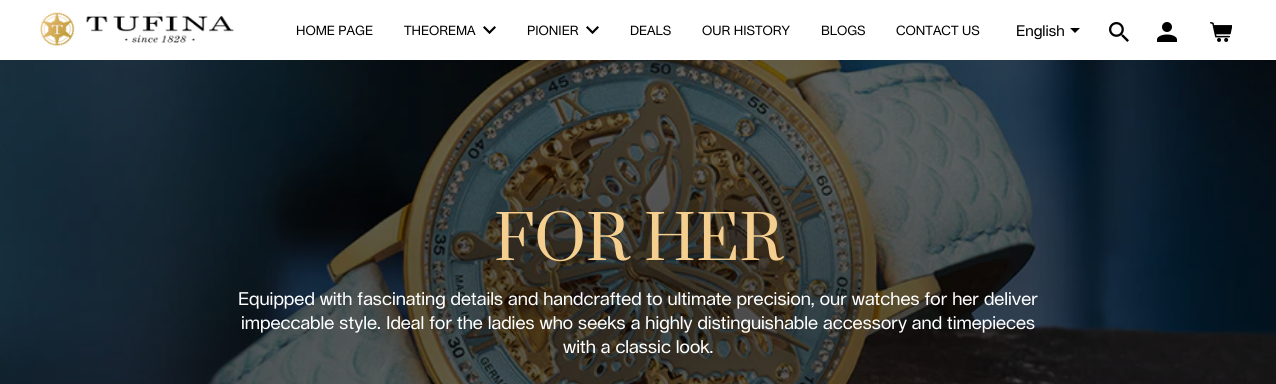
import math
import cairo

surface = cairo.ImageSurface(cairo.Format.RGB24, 1276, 384)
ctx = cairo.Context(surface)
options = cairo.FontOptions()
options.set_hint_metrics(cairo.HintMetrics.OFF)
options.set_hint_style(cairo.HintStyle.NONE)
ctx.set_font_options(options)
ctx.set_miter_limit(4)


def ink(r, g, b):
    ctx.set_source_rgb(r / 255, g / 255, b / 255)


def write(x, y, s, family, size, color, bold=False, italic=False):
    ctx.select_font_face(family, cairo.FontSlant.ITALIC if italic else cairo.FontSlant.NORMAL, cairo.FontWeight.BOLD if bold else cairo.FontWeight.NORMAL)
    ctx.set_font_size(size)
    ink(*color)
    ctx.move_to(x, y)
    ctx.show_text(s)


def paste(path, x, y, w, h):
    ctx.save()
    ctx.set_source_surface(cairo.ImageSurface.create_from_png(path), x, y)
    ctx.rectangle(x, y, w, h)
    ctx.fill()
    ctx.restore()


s1 = dict(family="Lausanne", size=13, color=(0, 0, 0))
s2 = dict(family="Lausanne", size=15, color=(0, 0, 0))
s3 = dict(family="Prata", size=60, color=(244, 207, 143))
s4 = dict(family="Lausanne", size=18, color=(255, 255, 255))

ink(255, 255, 255)
ctx.paint()
paste("pic1.png", 40, 12, 194, 35)
write(296, 35, "HOME PAGE", **s1)
write(404, 35, "THEOREMA", **s1)
paste("pic2.png", 483, 26, 13, 8)
write(527, 35, "PIONIER", **s1)
paste("pic2.png", 586, 26, 13, 8)
write(630, 35, "DEALS", **s1)
write(702, 35, "OUR HISTORY", **s1)
write(821, 35, "BLOGS", **s1)
write(896, 35, "CONTACT US", **s1)
ctx.new_path()
ctx.move_to(1070, 28)
ctx.line_to(1075, 33)
ctx.line_to(1080, 28)
ctx.close_path()
ctx.fill()
write(1016, 36, "English", **s2)
paste("pic3.png", 1109, 22, 20, 20)
paste("pic4.png", 1157, 22, 20, 20)
paste("pic5.png", 1210, 22, 22, 20)
paste("pic6.png", 0, 60, 1276, 324)
write(494, 260, "FOR HER", **s3)
write(238, 305, "Equipped with fascinating details and handcrafted to ultimate precision, our watches for her deliver", **s4)
write(241, 329, "impeccable style. Ideal for the ladies who seeks a highly distinguishable accessory and timepieces", **s4)
write(563, 353, "with a classic look.", **s4)
surface.write_to_png("screenshot.png")
